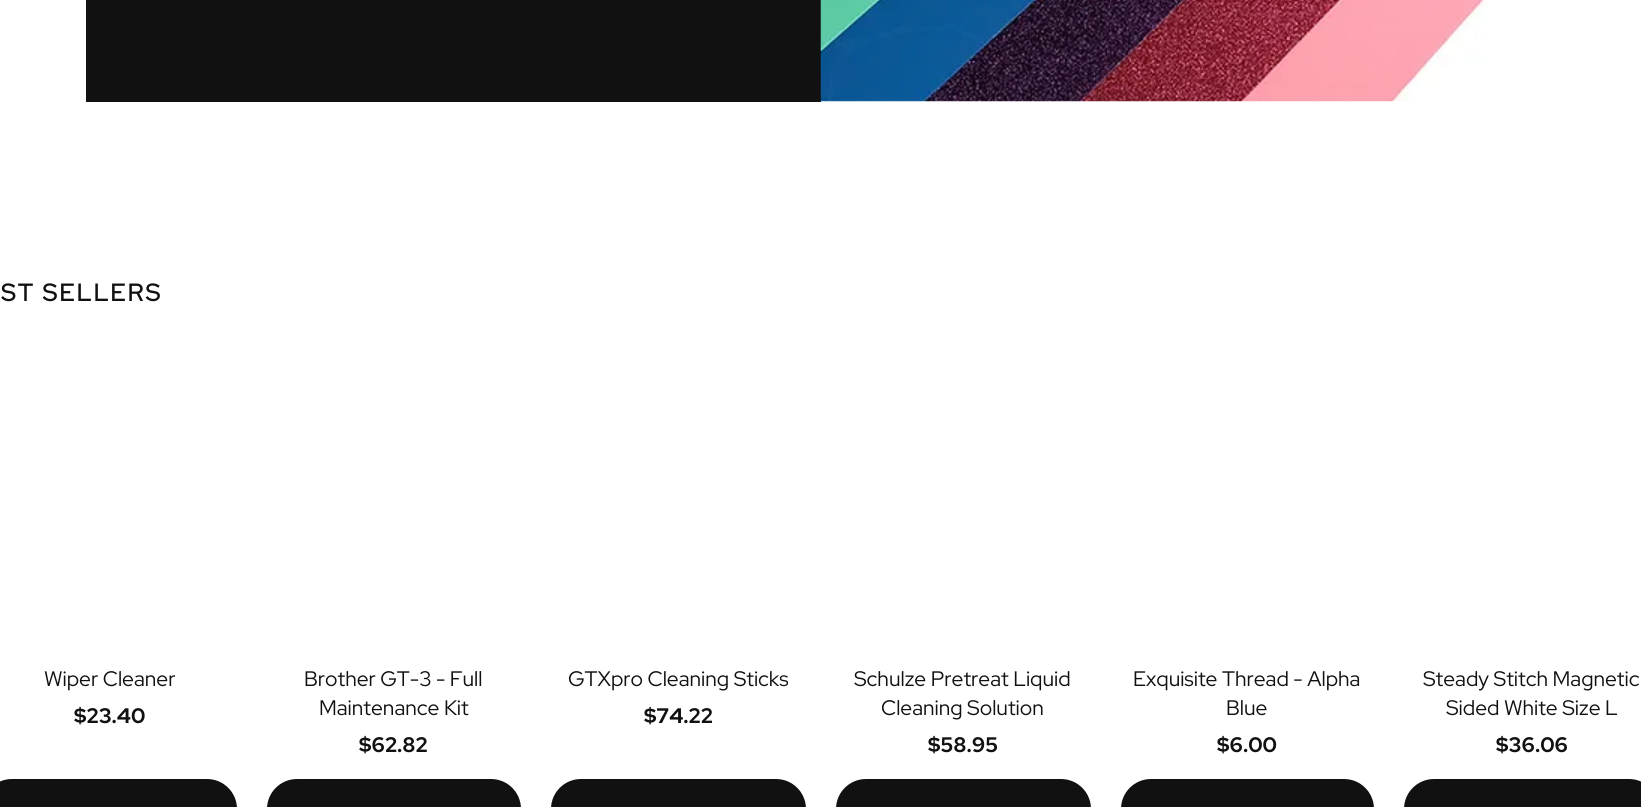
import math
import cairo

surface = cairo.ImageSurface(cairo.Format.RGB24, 1641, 807)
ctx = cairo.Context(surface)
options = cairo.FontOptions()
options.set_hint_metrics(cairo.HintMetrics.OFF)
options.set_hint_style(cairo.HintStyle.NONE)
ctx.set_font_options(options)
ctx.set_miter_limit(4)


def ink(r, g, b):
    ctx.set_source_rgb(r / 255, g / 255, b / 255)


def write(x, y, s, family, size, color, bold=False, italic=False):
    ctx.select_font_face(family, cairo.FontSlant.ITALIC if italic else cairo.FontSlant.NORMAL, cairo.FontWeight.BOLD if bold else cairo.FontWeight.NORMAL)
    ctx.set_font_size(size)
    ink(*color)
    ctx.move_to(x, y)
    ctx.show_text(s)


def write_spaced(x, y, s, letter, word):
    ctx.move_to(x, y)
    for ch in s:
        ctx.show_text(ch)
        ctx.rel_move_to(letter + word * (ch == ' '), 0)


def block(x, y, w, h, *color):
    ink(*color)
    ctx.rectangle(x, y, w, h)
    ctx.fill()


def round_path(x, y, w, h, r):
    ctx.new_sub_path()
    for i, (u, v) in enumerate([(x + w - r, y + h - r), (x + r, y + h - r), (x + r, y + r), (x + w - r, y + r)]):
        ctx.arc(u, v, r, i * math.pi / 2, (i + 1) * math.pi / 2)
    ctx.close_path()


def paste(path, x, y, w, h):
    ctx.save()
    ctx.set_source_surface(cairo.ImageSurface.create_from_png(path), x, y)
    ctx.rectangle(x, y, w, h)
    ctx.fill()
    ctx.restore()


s1 = dict(family="Red Hat Display", size=21, color=(17, 17, 17))
s2 = dict(family="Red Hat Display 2", size=21, color=(17, 17, 17), bold=True)

ink(255, 255, 255)
ctx.paint()
block(86, 0, 735, 102, 17, 17, 17)
paste("pic1.png", 820, 0, 669, 102)
ctx.select_font_face("Red Hat Display", cairo.FontSlant.NORMAL, cairo.FontWeight.BOLD)
ctx.set_font_size(24)
write_spaced(1, 301, "ST SELLERS", 2.4, 0)
write(44, 686, "Wiper Cleaner", **s1)
write(74, 723, "$23.40", **s2)
round_path(-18, 779, 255, 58, 30)
ctx.fill()
write(304, 686, "Brother GT-3 - Full", **s1)
write(319, 715, "Maintenance Kit", **s1)
write(359, 752, "$62.82", **s2)
round_path(267, 779, 254, 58, 30)
ctx.fill()
write(568, 686, "GTXpro Cleaning Sticks", **s1)
write(644, 723, "$74.22", **s2)
round_path(551, 779, 255, 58, 30)
ctx.fill()
write(854, 686, "Schulze Pretreat Liquid", **s1)
write(881, 715, "Cleaning Solution", **s1)
write(928, 752, "$58.95", **s2)
round_path(836, 779, 255, 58, 30)
ctx.fill()
write(1133, 686, "Exquisite Thread - Alpha", **s1)
write(1226, 715, "Blue", **s1)
write(1217, 752, "$6.00", **s2)
round_path(1121, 779, 253, 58, 30)
ctx.fill()
write(1423, 686, "Steady Stitch Magnetic", **s1)
write(1446, 715, "Sided White Size L", **s1)
write(1496, 752, "$36.06", **s2)
round_path(1404, 779, 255, 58, 30)
ctx.fill()
surface.write_to_png("screenshot.png")
